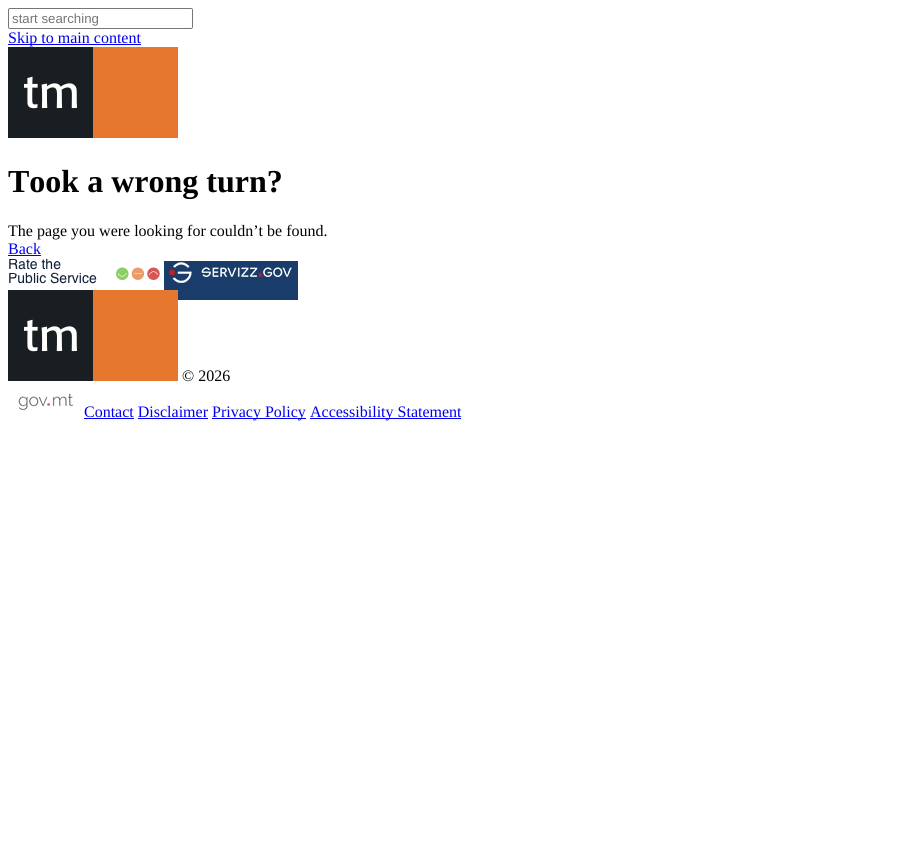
import math
import cairo

surface = cairo.ImageSurface(cairo.Format.RGB24, 909, 845)
ctx = cairo.Context(surface)
options = cairo.FontOptions()
options.set_hint_metrics(cairo.HintMetrics.OFF)
options.set_hint_style(cairo.HintStyle.NONE)
ctx.set_font_options(options)
ctx.set_miter_limit(4)


def ink(r, g, b):
    ctx.set_source_rgb(r / 255, g / 255, b / 255)


def write(x, y, s, family, size, color, bold=False, italic=False):
    ctx.select_font_face(family, cairo.FontSlant.ITALIC if italic else cairo.FontSlant.NORMAL, cairo.FontWeight.BOLD if bold else cairo.FontWeight.NORMAL)
    ctx.set_font_size(size)
    ink(*color)
    ctx.move_to(x, y)
    ctx.show_text(s)


def block(x, y, w, h, *color):
    ink(*color)
    ctx.rectangle(x, y, w, h)
    ctx.fill()


def round_path(x, y, w, h, r):
    ctx.new_sub_path()
    for i, (u, v) in enumerate([(x + w - r, y + h - r), (x + r, y + h - r), (x + r, y + r), (x + w - r, y + r)]):
        ctx.arc(u, v, r, i * math.pi / 2, (i + 1) * math.pi / 2)
    ctx.close_path()


def paste(path, x, y, w, h):
    ctx.save()
    ctx.set_source_surface(cairo.ImageSurface.create_from_png(path), x, y)
    ctx.rectangle(x, y, w, h)
    ctx.fill()
    ctx.restore()


s1 = dict(family="Liberation Sans", size=13.25, color=(117, 117, 117))
s2 = dict(family="Liberation Serif", size=16, color=(0, 0, 238))
s3 = dict(family="Liberation Serif", size=32, color=(0, 0, 0), bold=True)
s4 = dict(family="Liberation Serif", size=16, color=(0, 0, 0))

ink(255, 255, 255)
ctx.paint()
round_path(8.5, 8.5, 184, 20, 1.5)
ink(118, 118, 118)
ctx.set_line_width(1)
ctx.stroke()
write(12, 23, "start searching", **s1)
block(8, 44, 133, 1, 0, 0, 238)
write(8, 43, "Skip to main content", **s2)
paste("pic1.png", 8, 47, 170, 91)
write(8, 192, "Took a wrong turn?", **s3)
write(8, 236, "The page you were looking for couldn’t be found.", **s4)
write(8, 254, "Back", **s2)
block(8, 255, 33, 1, 0, 0, 238)
paste("pic2.png", 9, 258, 151, 26)
block(164, 261, 134, 39, 26, 60, 107)
paste("pic3.png", 169, 262, 123, 21)
paste("pic1.png", 8, 290, 170, 91)
write(182, 381, "© 2026", **s4)
paste("pic4.png", 18, 393, 56, 17)
write(84, 417, "Contact Disclaimer", **s2)
block(84, 418, 50, 1, 0, 0, 238)
block(212, 418, 94, 1, 0, 0, 238)
write(212, 417, "Privacy Policy", **s2)
block(310, 418, 151, 1, 0, 0, 238)
write(310, 417, "Accessibility Statement", **s2)
block(138, 418, 70, 1, 0, 0, 238)
surface.write_to_png("screenshot.png")
